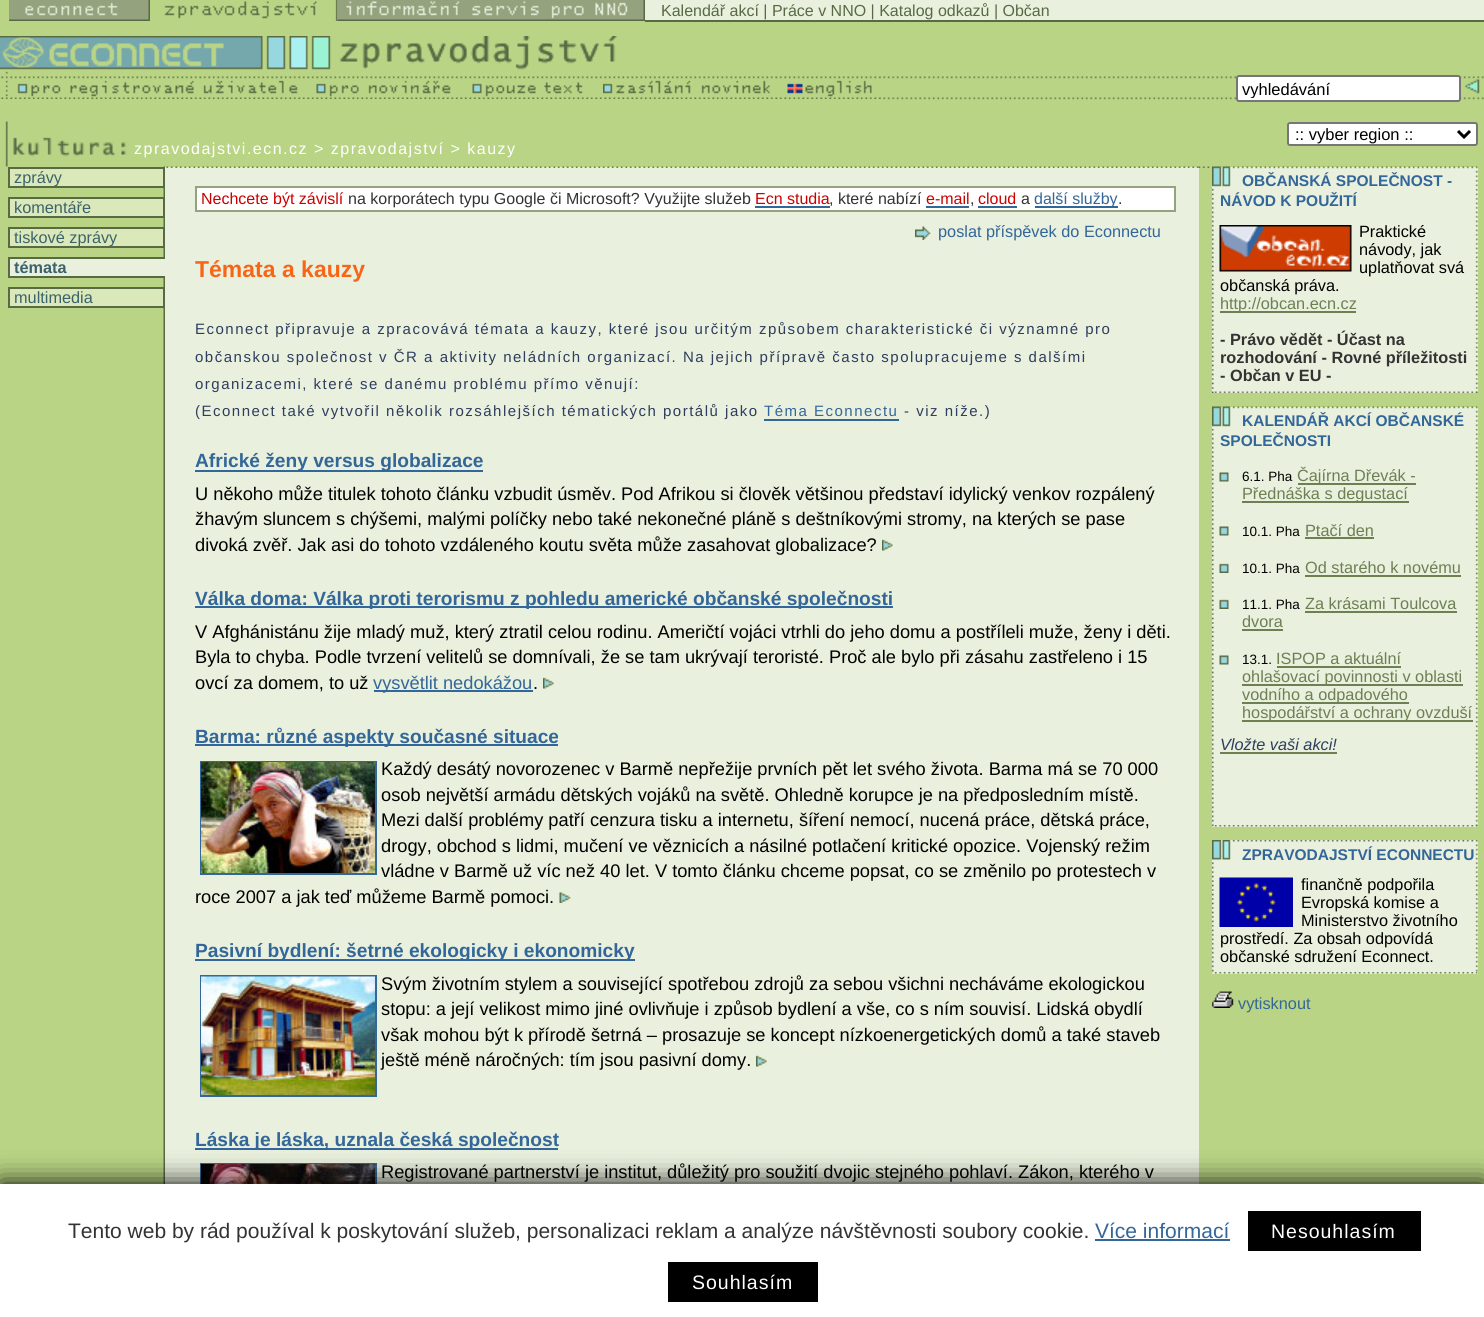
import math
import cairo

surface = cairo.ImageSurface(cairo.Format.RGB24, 1484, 1317)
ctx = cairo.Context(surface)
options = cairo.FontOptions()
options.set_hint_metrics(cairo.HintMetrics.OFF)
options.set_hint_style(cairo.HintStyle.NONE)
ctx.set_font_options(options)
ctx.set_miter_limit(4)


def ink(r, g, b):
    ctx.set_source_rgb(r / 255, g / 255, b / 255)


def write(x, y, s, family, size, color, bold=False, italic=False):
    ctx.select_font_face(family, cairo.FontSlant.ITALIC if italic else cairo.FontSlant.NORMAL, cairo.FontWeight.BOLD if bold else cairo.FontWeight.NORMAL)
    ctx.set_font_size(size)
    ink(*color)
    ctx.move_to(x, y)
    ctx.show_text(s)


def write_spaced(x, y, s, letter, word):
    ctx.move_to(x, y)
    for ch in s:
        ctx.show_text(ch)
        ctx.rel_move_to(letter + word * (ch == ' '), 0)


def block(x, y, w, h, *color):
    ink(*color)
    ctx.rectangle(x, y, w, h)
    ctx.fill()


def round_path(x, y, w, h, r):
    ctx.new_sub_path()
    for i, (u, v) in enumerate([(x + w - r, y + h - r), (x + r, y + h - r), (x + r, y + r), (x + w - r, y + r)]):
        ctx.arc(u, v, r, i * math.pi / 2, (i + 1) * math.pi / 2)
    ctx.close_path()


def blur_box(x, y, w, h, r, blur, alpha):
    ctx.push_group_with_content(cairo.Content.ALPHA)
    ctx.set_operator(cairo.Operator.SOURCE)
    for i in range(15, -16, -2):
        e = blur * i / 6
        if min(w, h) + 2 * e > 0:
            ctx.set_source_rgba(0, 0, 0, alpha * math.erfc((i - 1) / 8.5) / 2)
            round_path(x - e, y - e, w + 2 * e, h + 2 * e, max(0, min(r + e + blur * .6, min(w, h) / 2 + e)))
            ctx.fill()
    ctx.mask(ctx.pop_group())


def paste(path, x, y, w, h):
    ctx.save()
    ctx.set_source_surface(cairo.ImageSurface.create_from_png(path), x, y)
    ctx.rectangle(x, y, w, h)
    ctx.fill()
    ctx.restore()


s1 = dict(family="Liberation Sans", size=16, color=(88, 106, 68))
s2 = dict(family="Liberation Sans", size=16.5, color=(0, 0, 0))
s3 = dict(family="Liberation Sans", size=16.3, color=(60, 99, 108))
s4 = dict(family="Liberation Sans", size=16.3, color=(60, 99, 108), bold=True)
s5 = dict(family="Liberation Sans", size=16, color=(204, 0, 0))
s6 = dict(family="Liberation Sans", size=16, color=(51, 51, 51))
s7 = dict(family="Liberation Sans", size=16, color=(51, 102, 153))
s8 = dict(family="Liberation Sans", size=16.3, color=(51, 102, 153))
s9 = dict(family="Liberation Sans", size=23, color=(247, 102, 23), bold=True)
s10 = dict(family="Liberation Sans", size=19.15, color=(51, 102, 153), bold=True)
s11 = dict(family="Liberation Sans", size=18.25, color=(0, 0, 0))
s12 = dict(family="Liberation Sans", size=18.25, color=(51, 102, 153))
s13 = dict(family="Liberation Sans", size=15.5, color=(51, 102, 153), bold=True)
s14 = dict(family="Liberation Sans", size=16.3, color=(0, 0, 0))
s15 = dict(family="Liberation Sans", size=16.3, color=(109, 127, 83))
s16 = dict(family="Liberation Sans", size=16.3, color=(51, 51, 51), bold=True)
s17 = dict(family="Liberation Sans", size=13.5, color=(0, 0, 0))
s18 = dict(family="Liberation Sans", size=16.3, color=(47, 61, 94), italic=True)
s19 = dict(family="Liberation Sans", size=21, color=(51, 51, 51))
s20 = dict(family="Liberation Sans", size=21, color=(51, 102, 153))

ink(185, 212, 132)
ctx.paint()
paste("pic1.png", 9, 0, 141, 21)
paste("pic2.png", 164, 0, 174, 21)
paste("pic3.png", 337, 0, 308, 21)
block(645, 0, 839, 20, 233, 240, 221)
write(661, 16, "Kalendář akcí | Práce v NNO | Katalog odkazů | Občan", **s1)
block(645, 20, 839, 2, 88, 106, 68)
paste("pic4.png", 0, 36, 331, 38)
paste("pic5.png", 340, 36, 277, 34)
paste("pic6.png", 1, 76, 313, 23)
paste("pic7.png", 316, 76, 156, 23)
paste("pic8.png", 472, 76, 130, 23)
paste("pic9.png", 603, 76, 184, 23)
paste("pic11.png", 880, 76, 604, 24)
paste("pic10.png", 787, 76, 94, 23)
ink(255, 255, 255)
round_path(1237, 76, 223, 25, 2)
ctx.fill_preserve()
ink(118, 118, 118)
ctx.stroke()
ctx.save()
ctx.rectangle(1242, 80, 213, 18)
ctx.clip()
write(1242, 95, "vyhledávání", **s2)
ctx.restore()
paste("pic12.png", 1465, 79, 15, 15)
paste("pic13.png", 5, 121, 122, 46)
ink(255, 255, 255)
round_path(1288, 123, 189, 22, 2)
ctx.fill_preserve()
ink(118, 118, 118)
ctx.stroke()
ctx.new_path()
ctx.move_to(1458, 131)
ctx.line_to(1464, 137)
ctx.line_to(1470, 131)
ink(0, 0, 0)
ctx.set_line_width(3)
ctx.stroke()
write(1295, 140, ":: vyber region ::", **s2)
ctx.set_font_size(16)
ink(255, 255, 255)
write_spaced(134, 154, "zpravodajstvi.ecn.cz > zpravodajství > kauzy", 1.5, 0)
paste("pic14.png", 163, 166, 2, 1018)
ink(219, 233, 186)
ctx.rectangle(9, 168, 155, 19)
ctx.fill_preserve()
ink(88, 106, 68)
ctx.set_line_width(2)
ctx.stroke()
write(14, 183, "zprávy", **s3)
ink(219, 233, 186)
ctx.rectangle(9, 198, 155, 19)
ctx.fill_preserve()
ink(88, 106, 68)
ctx.stroke()
write(14, 213, "komentáře", **s3)
ink(219, 233, 186)
ctx.rectangle(9, 228, 155, 19)
ctx.fill_preserve()
ink(88, 106, 68)
ctx.stroke()
write(14, 243, "tiskové zprávy", **s3)
block(10, 259, 155, 17, 233, 240, 221)
block(8, 257, 157, 2, 88, 106, 68)
block(8, 276, 157, 2, 88, 106, 68)
block(8, 257, 2, 21, 88, 106, 68)
write(14, 273, "témata", **s4)
ink(219, 233, 186)
ctx.rectangle(9, 288, 155, 19)
ctx.fill_preserve()
ink(88, 106, 68)
ctx.stroke()
write(14, 303, "multimedia", **s3)
block(165, 167, 1034, 1017, 233, 240, 221)
paste("pic15.png", 166, 166, 1033, 2)
ink(255, 255, 255)
ctx.rectangle(196, 187, 979, 24)
ctx.fill_preserve()
ink(148, 163, 126)
ctx.stroke()
write(201, 204, "Nechcete být závislí", **s5)
write(348, 204, "na korporátech typu Google či Microsoft? Využijte služeb", **s6)
write(755, 204, "Ecn studia", **s5)
block(755, 206, 75, 2, 51, 102, 153)
write(829, 204, ", které nabízí", **s6)
write(926, 204, "e-mail", **s5)
block(926, 206, 43, 2, 51, 102, 153)
write(970, 204, ",", **s6)
write(978, 204, "cloud", **s5)
block(978, 206, 39, 2, 51, 102, 153)
write(1021, 204, "a", **s6)
block(1035, 206, 83, 2, 51, 102, 153)
write(1034, 204, "další služby", **s7)
write(1118, 204, ".", **s6)
paste("pic16.png", 915, 226, 16, 14)
write(938, 237, "poslat příspěvek do Econnectu", **s8)
write(195, 277, "Témata a kauzy", **s9)
ctx.select_font_face("Liberation Sans")
ctx.set_font_size(15)
ink(47, 61, 94)
write_spaced(195, 334, "Econnect připravuje a zpracovává témata a kauzy, které jsou určitým způsobem charakteristické či významné pro", 1.5, 0)
write_spaced(195, 362, "občanskou společnost v ČR a aktivity neládních organizací. Na jejich přípravě často spolupracujeme s dalšími", 1.5, 0)
write_spaced(195, 389, "organizacemi, které se danému problému přímo věnují:", 1.5, 0)
write_spaced(195, 416, "(Econnect také vytvořil několik rozsáhlejších tématických portálů jako", 1.5, 0)
ink(51, 102, 153)
write_spaced(764, 416, "Téma Econnectu", 1.5, 0)
block(764, 419, 135, 2, 51, 102, 153)
ink(47, 61, 94)
write_spaced(904, 416, "- viz níže.)", 1.5, 0)
block(195, 470, 288, 2, 51, 102, 153)
write(195, 467, "Africké ženy versus globalizace", **s10)
write(195, 500, "U někoho může titulek tohoto článku vzbudit úsměv. Pod Afrikou si člověk většinou představí idylický venkov rozpálený", **s11)
write(195, 525, "žhavým sluncem s chýšemi, malými políčky nebo také nekonečné pláně s deštníkovými stromy, na kterých se pase", **s11)
write(195, 551, "divoká zvěř. Jak asi do tohoto vzdáleného koutu světa může zasahovat globalizace?", **s11)
paste("pic17.png", 882, 539, 11, 12)
block(195, 606, 698, 2, 51, 102, 153)
write(195, 605, "Válka doma: Válka proti terorismu z pohledu americké občanské společnosti", **s10)
write(195, 638, "V Afghánistánu žije mladý muž, který ztratil celou rodinu. Američtí vojáci vtrhli do jeho domu a postříleli muže, ženy i děti.", **s11)
write(195, 663, "Byla to chyba. Podle tvrzení velitelů se domnívali, že se tam ukrývají teroristé. Proč ale bylo při zásahu zastřeleno i 15", **s11)
write(195, 689, "ovcí za domem, to už", **s11)
block(374, 690, 159, 2, 51, 102, 153)
write(373, 689, "vysvětlit nedokážou", **s12)
write(533, 689, ".", **s11)
paste("pic17.png", 543, 677, 11, 12)
block(195, 744, 363, 2, 51, 102, 153)
write(195, 743, "Barma: různé aspekty současné situace", **s10)
write(381, 775, "Každý desátý novorozenec v Barmě nepřežije prvních pět let svého života. Barma má se 70 000", **s11)
write(381, 801, "osob největší armádu dětských vojáků na světě. Ohledně korupce je na předposledním místě.", **s11)
write(381, 826, "Mezi další problémy patří cenzura tisku a internetu, šíření nemocí, nucená práce, dětská práce,", **s11)
write(381, 852, "drogy, obchod s lidmi, mučení ve věznicích a násilné potlačení kritické opozice. Vojenský režim", **s11)
write(381, 877, "vládne v Barmě už víc než 40 let. V tomto článku chceme popsat, co se změnilo po protestech v", **s11)
write(195, 903, "roce 2007 a jak teď můžeme Barmě pomoci.", **s11)
paste("pic18.png", 559, 892, 12, 11)
ctx.rectangle(201, 762, 175, 112)
ink(51, 102, 153)
ctx.stroke()
paste("pic19.png", 201, 762, 174, 111)
block(195, 959, 440, 2, 51, 102, 153)
write(195, 957, "Pasivní bydlení: šetrné ekologicky i ekonomicky", **s10)
ctx.rectangle(201, 976, 175, 120)
ctx.stroke()
paste("pic20.png", 201, 976, 174, 119)
write(381, 990, "Svým životním stylem a související spotřebou zdrojů za sebou všichni necháváme ekologickou", **s11)
write(381, 1015, "stopu: a její velikost mimo jiné ovlivňuje i způsob bydlení a vše, co s ním souvisí. Lidská obydlí", **s11)
write(381, 1041, "však mohou být k přírodě šetrná – prosazuje se koncept nízkoenergetických domů a také staveb", **s11)
write(381, 1066, "ještě méně náročných: tím jsou pasivní domy.", **s11)
paste("pic21.png", 756, 1055, 11, 12)
block(195, 1148, 363, 2, 51, 102, 153)
write(195, 1146, "Láska je láska, uznala česká společnost", **s10)
ctx.rectangle(201, 1164, 175, 122)
ctx.stroke()
paste("pic22.png", 201, 1164, 174, 20)
write(381, 1178, "Registrované partnerství je institut, důležitý pro soužití dvojic stejného pohlaví. Zákon, kterého v", **s11)
paste("pic23.png", 1198, 166, 12, 2)
block(1212, 167, 266, 226, 233, 240, 221)
paste("pic24.png", 1212, 166, 266, 227)
paste("pic25.png", 1212, 391, 266, 2)
write(1242, 186, "OBČANSKÁ SPOLEČNOST -", **s13)
write(1220, 206, "NÁVOD K POUŽITÍ", **s13)
paste("pic26.png", 1219, 225, 133, 47)
write(1359, 237, "Praktické", **s14)
write(1359, 255, "návody, jak", **s14)
write(1359, 273, "uplatňovat svá", **s14)
write(1220, 291, "občanská práva.", **s14)
block(1220, 311, 136, 2, 109, 127, 83)
write(1220, 309, "http://obcan.ecn.cz", **s15)
write(1220, 345, "- Právo vědět - Účast na", **s16)
write(1220, 363, "rozhodování - Rovné příležitosti", **s16)
write(1220, 381, "- Občan v EU -", **s16)
block(1212, 407, 266, 420, 233, 240, 221)
paste("pic27.png", 1212, 406, 266, 421)
paste("pic28.png", 1212, 825, 266, 2)
write(1242, 426, "KALENDÁŘ AKCÍ OBČANSKÉ", **s13)
write(1220, 446, "SPOLEČNOSTI", **s13)
paste("pic29.png", 1219, 472, 10, 10)
write(1242, 481, "6.1. Pha", **s17)
block(1298, 483, 118, 2, 109, 127, 83)
write(1297, 481, "Čajírna Dřevák -", **s15)
block(1242, 501, 167, 2, 109, 127, 83)
write(1242, 499, "Přednáška s degustací", **s15)
paste("pic29.png", 1219, 526, 10, 10)
write(1242, 536, "10.1. Pha", **s17)
write(1305, 536, "Ptačí den", **s15)
block(1305, 537, 69, 2, 109, 127, 83)
paste("pic30.png", 1219, 563, 10, 10)
write(1242, 573, "10.1. Pha", **s17)
write(1305, 573, "Od starého k novému", **s15)
block(1305, 575, 156, 2, 109, 127, 83)
paste("pic30.png", 1219, 599, 10, 10)
write(1242, 609, "11.1. Pha", **s17)
write(1305, 609, "Za krásami Toulcova", **s15)
block(1305, 611, 152, 2, 109, 127, 83)
write(1242, 627, "dvora", **s15)
block(1242, 629, 41, 2, 109, 127, 83)
paste("pic29.png", 1219, 655, 10, 10)
write(1242, 664, "13.1.", **s17)
write(1276, 664, "ISPOP a aktuální", **s15)
block(1277, 666, 124, 2, 109, 127, 83)
block(1242, 684, 221, 2, 109, 127, 83)
write(1242, 682, "ohlašovací povinnosti v oblasti", **s15)
block(1242, 702, 167, 2, 109, 127, 83)
write(1242, 700, "vodního a odpadového", **s15)
block(1242, 720, 231, 2, 109, 127, 83)
write(1242, 718, "hospodářství a ochrany ovzduší", **s15)
write(1220, 750, "Vložte vaši akci!", **s18)
block(1220, 752, 117, 2, 109, 127, 83)
block(1212, 840, 266, 134, 233, 240, 221)
paste("pic31.png", 1212, 840, 266, 132)
paste("pic32.png", 1212, 972, 266, 2)
write(1242, 860, "ZPRAVODAJSTVÍ ECONNECTU", **s13)
paste("pic33.png", 1219, 877, 74, 50)
write(1301, 890, "finančně podpořila", **s14)
write(1301, 908, "Evropská komise a", **s14)
write(1301, 926, "Ministerstvo životního", **s14)
write(1220, 944, "prostředí. Za obsah odpovídá", **s14)
write(1220, 962, "občanské sdružení Econnect.", **s14)
paste("pic34.png", 1212, 991, 22, 17)
write(1238, 1009, "vytisknout", **s8)
ink(0, 0, 0)
blur_box(0, 1184, 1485, 133, 0, 14, 1)
block(0, 1184, 1484, 133, 255, 255, 255)
write(68, 1238, "Tento web by rád používal k poskytování služeb, personalizaci reklam a analýze návštěvnosti soubory cookie.", **s19)
write(1095, 1238, "Více informací", **s20)
block(1095, 1239, 135, 2, 51, 102, 153)
block(1248, 1211, 173, 40, 0, 0, 0)
ctx.set_font_size(19.5)
ink(255, 255, 255)
write_spaced(1271, 1238, "Nesouhlasím", 1, 0)
block(668, 1262, 150, 40, 0, 0, 0)
ink(255, 255, 255)
write_spaced(692, 1289, "Souhlasím", 1, 0)
surface.write_to_png("screenshot.png")
